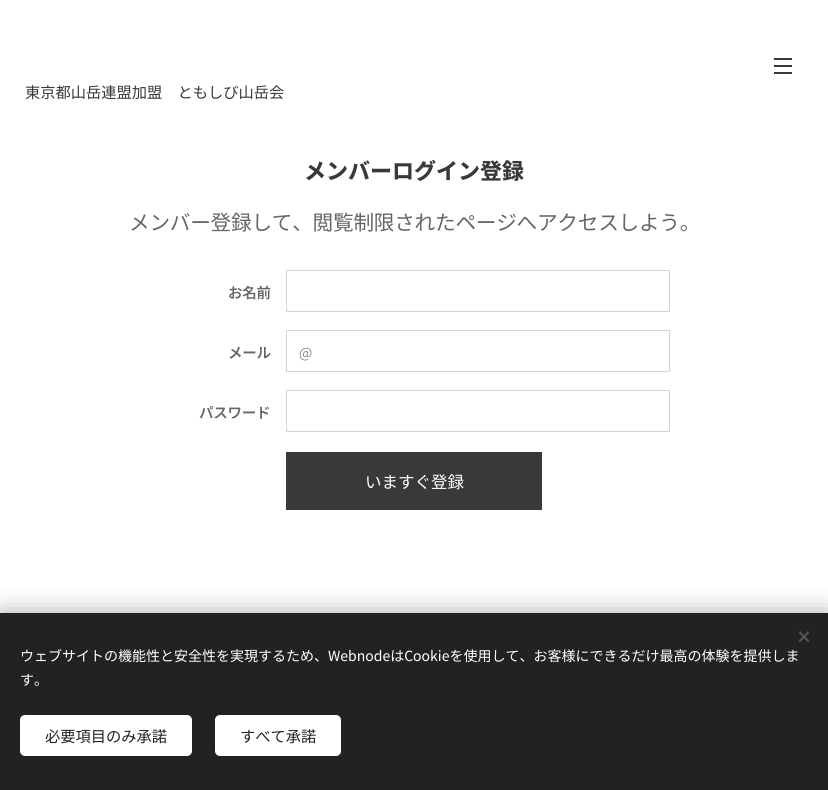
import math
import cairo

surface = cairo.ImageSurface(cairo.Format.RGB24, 828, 790)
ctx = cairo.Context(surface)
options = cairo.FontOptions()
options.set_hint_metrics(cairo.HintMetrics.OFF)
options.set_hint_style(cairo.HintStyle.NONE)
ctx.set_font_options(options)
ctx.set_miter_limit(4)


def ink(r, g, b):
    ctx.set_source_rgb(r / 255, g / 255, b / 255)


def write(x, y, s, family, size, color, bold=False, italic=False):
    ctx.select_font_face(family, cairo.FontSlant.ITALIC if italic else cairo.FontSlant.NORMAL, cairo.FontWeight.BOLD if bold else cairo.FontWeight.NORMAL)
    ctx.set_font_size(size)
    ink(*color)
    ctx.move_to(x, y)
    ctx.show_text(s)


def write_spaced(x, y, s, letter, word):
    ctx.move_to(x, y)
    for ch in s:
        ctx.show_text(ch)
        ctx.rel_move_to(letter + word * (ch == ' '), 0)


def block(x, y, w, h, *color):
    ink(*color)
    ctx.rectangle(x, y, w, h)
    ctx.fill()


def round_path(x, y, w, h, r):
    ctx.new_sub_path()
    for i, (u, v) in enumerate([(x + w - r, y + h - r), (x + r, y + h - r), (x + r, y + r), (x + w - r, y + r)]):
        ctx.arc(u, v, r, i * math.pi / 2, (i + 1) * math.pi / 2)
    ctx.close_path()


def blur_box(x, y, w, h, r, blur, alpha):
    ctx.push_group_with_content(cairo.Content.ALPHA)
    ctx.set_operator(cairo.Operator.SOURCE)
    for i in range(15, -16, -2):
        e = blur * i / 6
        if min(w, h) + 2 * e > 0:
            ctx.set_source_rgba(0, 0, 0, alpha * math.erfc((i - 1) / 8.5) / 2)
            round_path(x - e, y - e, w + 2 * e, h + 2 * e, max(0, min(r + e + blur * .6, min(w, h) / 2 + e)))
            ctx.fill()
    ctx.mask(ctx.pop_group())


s1 = dict(family="Noto Sans JP", size=15.25, color=(57, 57, 57))
s2 = dict(family="Noto Sans JP ExtraBold", size=22, color=(57, 57, 57))
s3 = dict(family="Noto Sans JP Light", size=14.5, color=(102, 102, 102))
s4 = dict(family="Noto Sans JP", size=16.5, color=(255, 255, 255))
s5 = dict(family="Noto Sans JP", size=14, color=(255, 255, 255))
s6 = dict(family="Noto Sans JP", size=15.25, color=(34, 34, 34))

ink(255, 255, 255)
ctx.paint()
block(774, 65, 18, 2, 57, 57, 57)
block(774, 58, 18, 2, 57, 57, 57)
block(774, 72, 18, 2, 57, 57, 57)
write(25, 98, "東京都山岳連盟加盟　ともしび山岳会", **s1)
write(304, 179, "メンバーログイン登録", **s2)
ctx.select_font_face("Noto Sans JP")
ctx.set_font_size(20.65)
ink(102, 102, 102)
write_spaced(129, 230, "メンバー登録して、閲覧制限されたページへアクセスしよう。", -0.25, 0)
ctx.select_font_face("Noto Sans JP SemiBold")
ctx.set_font_size(14.5)
write_spaced(228, 298, "お名前", -0.25, 0)
ctx.rectangle(286.5, 270.5, 383, 41)
ink(212, 212, 212)
ctx.set_line_width(1)
ctx.stroke()
ink(102, 102, 102)
write_spaced(228, 358, "メール", -0.25, 0)
ctx.rectangle(286.5, 330.5, 383, 41)
ink(212, 212, 212)
ctx.stroke()
write(299, 358, "@", **s3)
ctx.select_font_face("Noto Sans JP SemiBold")
write_spaced(199, 418, "パスワード", -0.25, 0)
ctx.rectangle(286.5, 390.5, 383, 41)
ink(212, 212, 212)
ctx.stroke()
block(286, 452, 256, 58, 57, 57, 57)
write(365, 488, "いますぐ登録", **s4)
ink(0, 0, 0)
blur_box(0, 613, 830, 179, 0, 12.5, 0.33)
block(0, 613, 828, 177, 34, 34, 34)
ink(85, 85, 85)
ctx.new_path()
ctx.move_to(798.5, 641)
ctx.line_to(808, 631)
ctx.line_to(809.5, 632.5)
ctx.line_to(800, 642.5)
ctx.close_path()
ctx.fill()
ctx.new_path()
ctx.move_to(800, 631)
ctx.line_to(809.5, 641)
ctx.line_to(808, 642.5)
ctx.line_to(798.5, 632.5)
ctx.close_path()
ctx.fill()
write(20, 661, "ウェブサイトの機能性と安全性を実現するため、WebnodeはCookieを使用して、お客様にできるだけ最高の体験を提供しま", **s5)
write(20, 685, "す。", **s5)
round_path(20, 715, 172, 41, 5)
ctx.fill()
write(45, 742, "必要項目のみ承諾", **s6)
ink(255, 255, 255)
round_path(215, 715, 126, 41, 5)
ctx.fill()
write(240, 742, "すべて承諾", **s6)
surface.write_to_png("screenshot.png")
